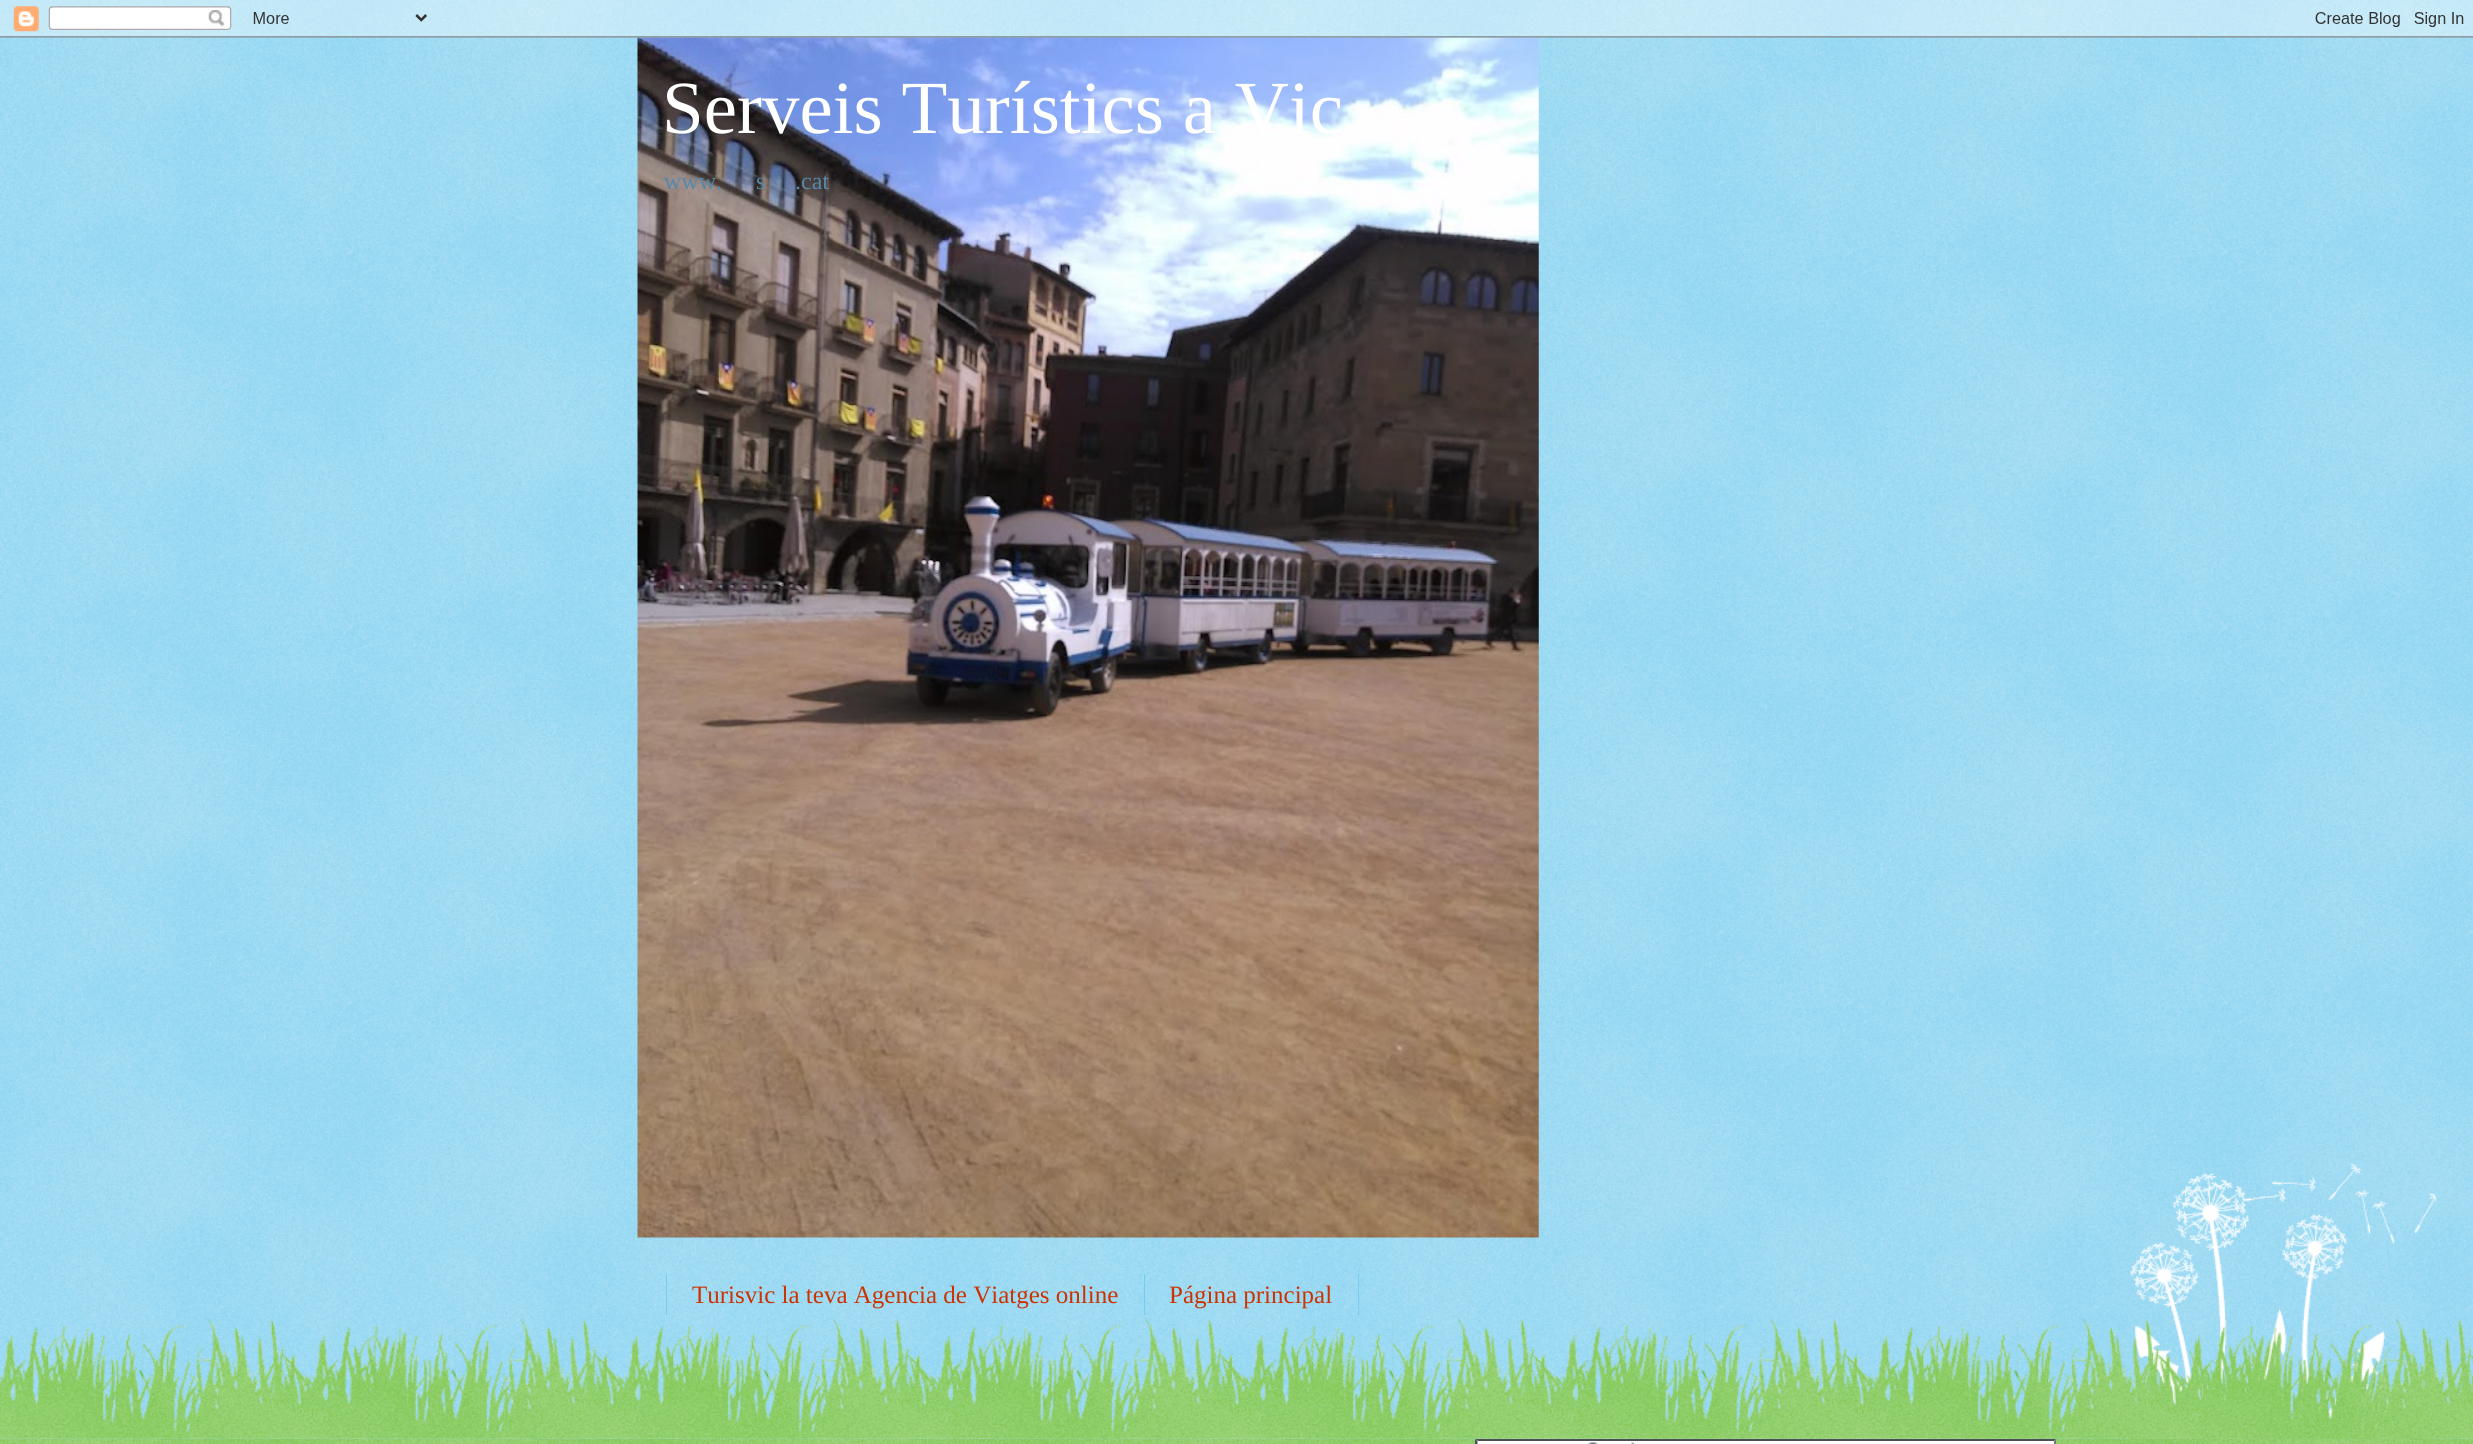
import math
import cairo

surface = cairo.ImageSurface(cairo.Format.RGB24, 2473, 1444)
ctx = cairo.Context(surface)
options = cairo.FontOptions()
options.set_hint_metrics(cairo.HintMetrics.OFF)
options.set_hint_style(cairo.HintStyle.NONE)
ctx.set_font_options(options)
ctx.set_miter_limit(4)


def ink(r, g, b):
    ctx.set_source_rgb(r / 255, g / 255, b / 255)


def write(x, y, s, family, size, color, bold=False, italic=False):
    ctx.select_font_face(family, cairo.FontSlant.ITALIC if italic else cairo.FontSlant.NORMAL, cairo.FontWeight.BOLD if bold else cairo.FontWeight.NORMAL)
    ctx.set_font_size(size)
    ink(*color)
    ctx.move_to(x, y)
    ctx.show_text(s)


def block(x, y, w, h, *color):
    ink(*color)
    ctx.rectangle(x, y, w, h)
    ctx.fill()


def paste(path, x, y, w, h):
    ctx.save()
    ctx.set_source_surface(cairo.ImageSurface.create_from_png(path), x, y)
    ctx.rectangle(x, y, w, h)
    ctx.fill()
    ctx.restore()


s1 = dict(family="Liberation Serif", size=75, color=(255, 255, 255))
s2 = dict(family="Liberation Serif", size=24, color=(85, 136, 170))
s3 = dict(family="Liberation Serif", size=25, color=(204, 51, 0))

ink(119, 204, 238)
ctx.paint()
paste("pic1.png", 0, 0, 2473, 1439)
paste("pic3.png", 637, 37, 902, 1201)
paste("pic2.png", 0, 0, 2473, 38)
write(662, 133, "Serveis Turístics a Vic", **s1)
write(664, 189, "www.", **s2)
write(756, 189, "s", **s2)
write(795, 189, ".cat", **s2)
block(0, 1439, 2473, 5, 102, 187, 51)
paste("pic4.png", 0, 1438, 2473, 6)
paste("pic5.png", 2123, 1163, 314, 276)
paste("pic6.png", 0, 1318, 2473, 121)
block(1475, 1439, 581, 5, 255, 255, 255)
paste("pic7.png", 1587, 1442, 48, 2)
ink(79, 79, 79)
ctx.new_path()
ctx.move_to(1475, 1439)
ctx.line_to(2056, 1439)
ctx.line_to(2054, 1441)
ctx.line_to(1478, 1441)
ctx.close_path()
ctx.fill()
ink(118, 118, 118)
ctx.new_path()
ctx.move_to(2056, 1439)
ctx.line_to(2056, 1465)
ctx.line_to(2054, 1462.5)
ctx.line_to(2054, 1441)
ctx.close_path()
ctx.fill()
ink(79, 79, 79)
ctx.new_path()
ctx.move_to(1475, 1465)
ctx.line_to(1475, 1439)
ctx.line_to(1477.5, 1441)
ctx.line_to(1477.5, 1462.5)
ctx.close_path()
ctx.fill()
block(1144, 1274, 1, 41, 119, 204, 238)
block(666, 1274, 1, 41, 119, 204, 238)
write(692, 1303, "Turisvic la teva Agencia de Viatges online", **s3)
block(1358, 1274, 1, 41, 119, 204, 238)
write(1169, 1303, "Página principal", **s3)
surface.write_to_png("screenshot.png")
